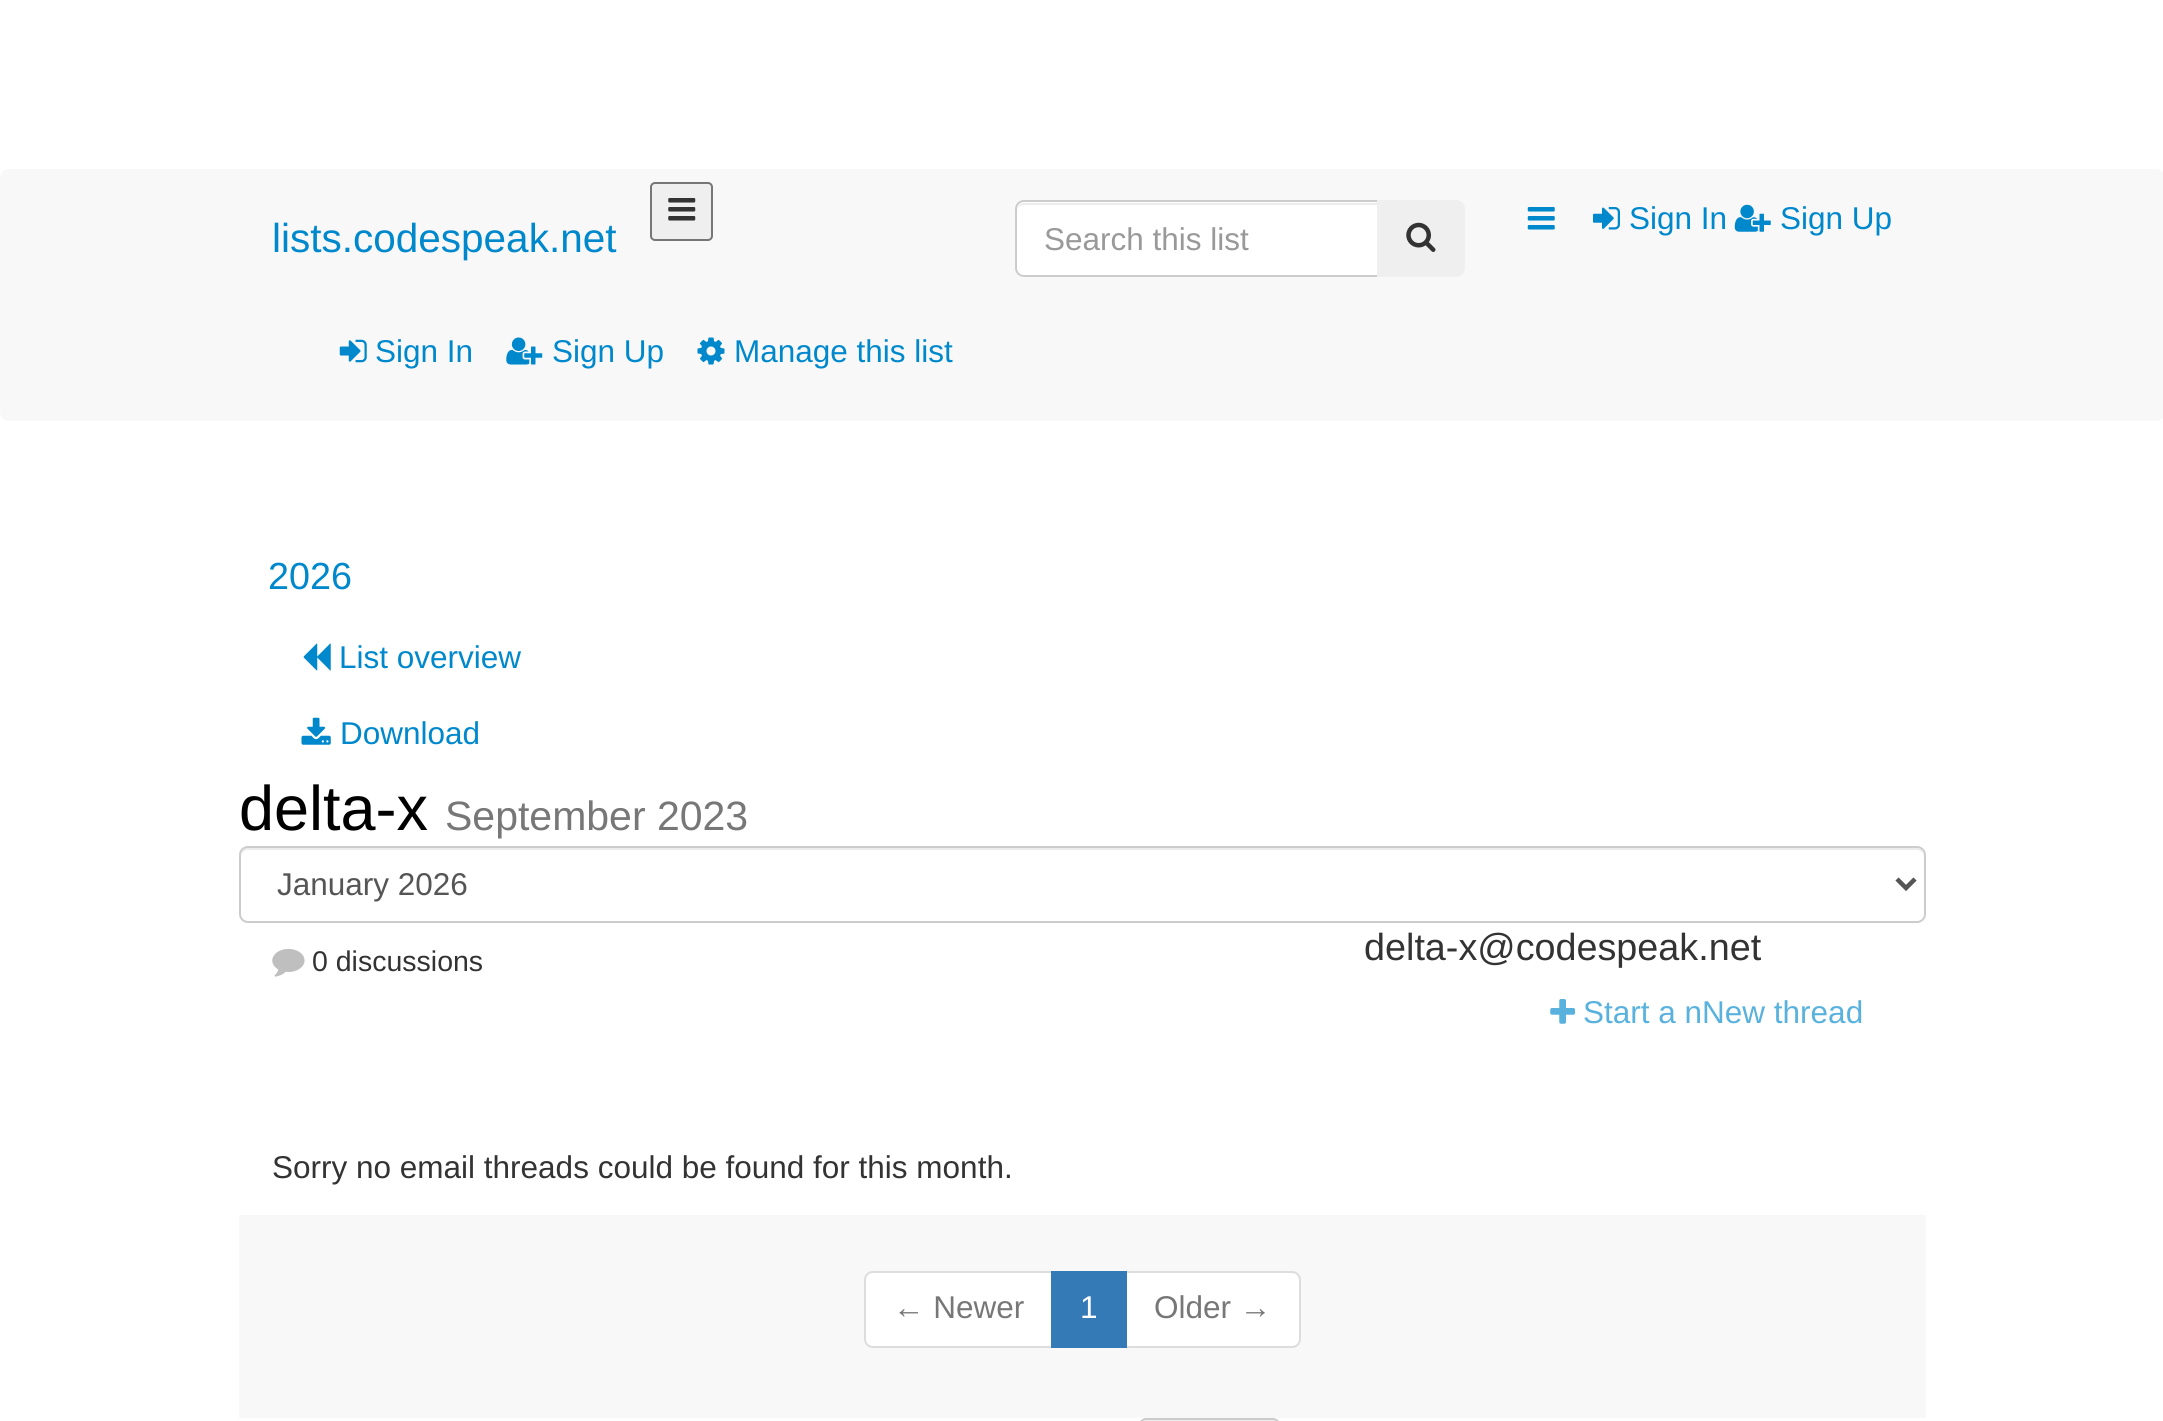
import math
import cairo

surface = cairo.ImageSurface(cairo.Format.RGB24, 2163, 1421)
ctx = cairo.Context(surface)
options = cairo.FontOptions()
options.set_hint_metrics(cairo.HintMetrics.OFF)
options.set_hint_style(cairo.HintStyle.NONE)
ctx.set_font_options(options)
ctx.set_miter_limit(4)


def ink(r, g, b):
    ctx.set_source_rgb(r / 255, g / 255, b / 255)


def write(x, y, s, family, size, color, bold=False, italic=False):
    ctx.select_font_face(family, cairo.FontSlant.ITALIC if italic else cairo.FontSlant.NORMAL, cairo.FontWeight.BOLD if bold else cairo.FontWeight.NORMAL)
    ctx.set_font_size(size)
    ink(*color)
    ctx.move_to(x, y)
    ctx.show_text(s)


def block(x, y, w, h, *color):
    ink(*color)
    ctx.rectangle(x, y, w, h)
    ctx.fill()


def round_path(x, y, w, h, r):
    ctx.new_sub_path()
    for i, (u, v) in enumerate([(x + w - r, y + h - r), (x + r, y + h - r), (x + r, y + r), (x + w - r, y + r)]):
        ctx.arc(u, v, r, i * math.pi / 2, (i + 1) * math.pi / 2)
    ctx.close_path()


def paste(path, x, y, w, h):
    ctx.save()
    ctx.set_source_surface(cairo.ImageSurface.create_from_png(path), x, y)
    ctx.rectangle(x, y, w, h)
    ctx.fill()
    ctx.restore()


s1 = dict(family="Liberation Sans", size=31.5, color=(0, 136, 204))
s2 = dict(family="Liberation Sans", size=31.5, color=(153, 153, 153))
s3 = dict(family="Liberation Sans", size=40.5, color=(0, 136, 204))
s4 = dict(family="Liberation Sans", size=37.75, color=(0, 136, 204))
s5 = dict(family="Liberation Sans", size=63, color=(0, 0, 0))
s6 = dict(family="Liberation Sans", size=41, color=(119, 119, 119))
s7 = dict(family="Liberation Sans", size=31.5, color=(85, 85, 85))
s8 = dict(family="Liberation Sans", size=28.5, color=(51, 51, 51))
s9 = dict(family="Liberation Sans", size=37.75, color=(51, 51, 51))
s10 = dict(family="Liberation Sans", size=31.5, color=(89, 178, 222))
s11 = dict(family="Liberation Sans", size=31.5, color=(51, 51, 51))
s12 = dict(family="Liberation Sans", size=31.5, color=(119, 119, 119))
s13 = dict(family="Liberation Sans", size=31.5, color=(255, 255, 255))

ink(255, 255, 255)
ctx.paint()
ink(248, 248, 248)
round_path(0, 169, 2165, 252, 9)
ctx.fill()
paste("pic1.png", 1527, 207, 28, 23)
paste("pic2.png", 1593, 207, 27, 23)
write(1629, 229, "Sign In", **s1)
paste("pic3.png", 1734, 204, 37, 28)
write(1780, 229, "Sign Up", **s1)
ink(255, 255, 255)
ctx.new_path()
ctx.move_to(1024, 200)
ctx.line_to(1379, 200)
ctx.line_to(1379, 277)
ctx.line_to(1024, 277)
ctx.curve_to(1019, 277, 1015, 273, 1015, 268)
ctx.line_to(1015, 209)
ctx.curve_to(1015, 204, 1019, 200, 1024, 200)
ctx.close_path()
ctx.fill()
ink(236, 236, 236)
ctx.new_path()
ctx.move_to(1024, 205)
ctx.line_to(1377, 205)
ctx.line_to(1377, 203)
ctx.line_to(1024, 203)
ctx.curve_to(1019, 203, 1017, 208, 1017, 212)
ctx.curve_to(1017, 208, 1020, 205, 1024, 205)
ctx.close_path()
ctx.fill()
ctx.new_path()
ctx.move_to(1024, 201)
ctx.line_to(1378, 201)
ctx.line_to(1378, 276)
ctx.line_to(1024, 276)
ctx.curve_to(1019.5, 276, 1016, 272.5, 1016, 268)
ctx.line_to(1016, 209)
ctx.curve_to(1016, 204.5, 1019.5, 201, 1024, 201)
ctx.close_path()
ink(204, 204, 204)
ctx.stroke()
write(1044, 250, "Search this list", **s2)
ink(239, 239, 239)
ctx.new_path()
ctx.move_to(1377, 200)
ctx.line_to(1456, 200)
ctx.curve_to(1461, 200, 1465, 204, 1465, 209)
ctx.line_to(1465, 268)
ctx.curve_to(1465, 273, 1461, 277, 1456, 277)
ctx.line_to(1377, 277)
ctx.close_path()
ctx.fill()
paste("pic4.png", 1406, 222, 30, 30)
paste("pic5.png", 339, 339, 28, 24)
write(375, 362, "Sign In", **s1)
paste("pic6.png", 506, 337, 37, 28)
write(552, 362, "Sign Up", **s1)
paste("pic7.png", 697, 337, 28, 28)
write(734, 362, "Manage this list", **s1)
write(272, 252, "lists.codespeak.net", **s3)
ink(239, 239, 239)
round_path(651, 183, 61, 57, 4)
ctx.fill_preserve()
ink(118, 118, 118)
ctx.stroke()
paste("pic8.png", 668, 198, 28, 23)
write(268, 589, "2026", **s4)
paste("pic9.png", 303, 643, 28, 28)
write(339, 668, "List overview", **s1)
paste("pic10.png", 301, 717, 30, 28)
write(340, 744, "Download", **s1)
write(239, 830, "delta-x", **s5)
write(445, 830, "September 2023", **s6)
ink(236, 236, 236)
ctx.new_path()
ctx.move_to(248, 850)
ctx.line_to(1917, 850)
ctx.curve_to(1921, 850, 1924, 854, 1924, 857)
ctx.curve_to(1924, 853, 1922, 848, 1917, 848)
ctx.line_to(248, 848)
ctx.curve_to(243, 848, 241, 853, 241, 857)
ctx.curve_to(241, 854, 244, 850, 248, 850)
ctx.close_path()
ctx.fill()
round_path(240, 847, 1685, 75, 8)
ink(204, 204, 204)
ctx.stroke()
ctx.new_path()
ctx.move_to(1897, 879)
ctx.line_to(1906, 888)
ctx.line_to(1915, 879)
ink(85, 85, 85)
ctx.set_line_width(4.5)
ctx.stroke()
write(277, 895, "January 2026", **s7)
paste("pic11.png", 272, 948, 33, 29)
write(312, 971, "0 discussions", **s8)
write(1364, 960, "delta-x@codespeak.net", **s9)
paste("pic12.png", 1550, 999, 25, 25)
write(1583, 1023, "Start a nNew thread", **s10)
write(272, 1178, "Sorry no email threads could be found for this month.", **s11)
block(239, 1215, 1687, 203, 248, 248, 248)
ink(255, 255, 255)
ctx.new_path()
ctx.move_to(873, 1272)
ctx.line_to(1052, 1272)
ctx.line_to(1052, 1347)
ctx.line_to(873, 1347)
ctx.curve_to(868.5, 1347, 865, 1343.5, 865, 1339)
ctx.line_to(865, 1280)
ctx.curve_to(865, 1275.5, 868.5, 1272, 873, 1272)
ctx.close_path()
ctx.fill_preserve()
ink(221, 221, 221)
ctx.set_line_width(2)
ctx.stroke()
write(893, 1318, "← Newer", **s12)
ink(255, 255, 255)
ctx.new_path()
ctx.move_to(1126, 1272)
ctx.line_to(1292, 1272)
ctx.curve_to(1296.5, 1272, 1300, 1275.5, 1300, 1280)
ctx.line_to(1300, 1339)
ctx.curve_to(1300, 1343.5, 1296.5, 1347, 1292, 1347)
ctx.line_to(1126, 1347)
ctx.close_path()
ctx.fill_preserve()
ink(221, 221, 221)
ctx.stroke()
block(1051, 1271, 76, 77, 51, 122, 183)
write(1080, 1318, "1", **s13)
write(1154, 1318, "Older →", **s12)
ink(236, 236, 236)
ctx.new_path()
ctx.move_to(1145, 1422)
ctx.line_to(1274, 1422)
ctx.curve_to(1276, 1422, 1278, 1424, 1278, 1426)
ctx.line_to(1278, 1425)
ctx.curve_to(1278, 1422, 1276, 1420, 1273, 1420)
ctx.line_to(1146, 1420)
ctx.curve_to(1143, 1420, 1141, 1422, 1141, 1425)
ctx.line_to(1141, 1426)
ctx.curve_to(1141, 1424, 1143, 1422, 1145, 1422)
ctx.close_path()
ctx.fill()
round_path(1140, 1419, 139, 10, 6)
ink(204, 204, 204)
ctx.stroke()
surface.write_to_png("screenshot.png")
